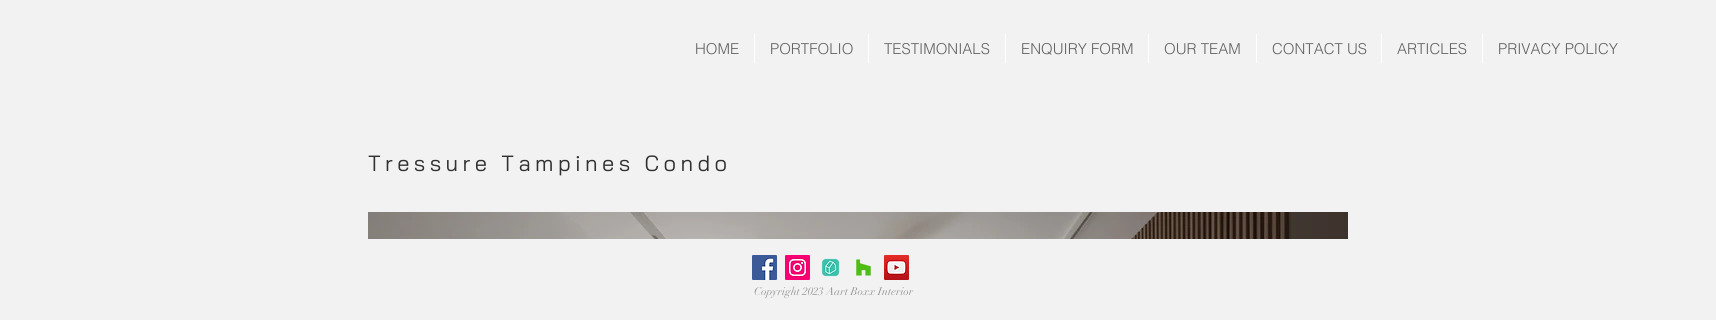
import math
import cairo

surface = cairo.ImageSurface(cairo.Format.RGB24, 1716, 320)
ctx = cairo.Context(surface)
options = cairo.FontOptions()
options.set_hint_metrics(cairo.HintMetrics.OFF)
options.set_hint_style(cairo.HintStyle.NONE)
ctx.set_font_options(options)
ctx.set_miter_limit(4)


def ink(r, g, b):
    ctx.set_source_rgb(r / 255, g / 255, b / 255)


def write(x, y, s, family, size, color, bold=False, italic=False):
    ctx.select_font_face(family, cairo.FontSlant.ITALIC if italic else cairo.FontSlant.NORMAL, cairo.FontWeight.BOLD if bold else cairo.FontWeight.NORMAL)
    ctx.set_font_size(size)
    ink(*color)
    ctx.move_to(x, y)
    ctx.show_text(s)


def write_spaced(x, y, s, letter, word):
    ctx.move_to(x, y)
    for ch in s:
        ctx.show_text(ch)
        ctx.rel_move_to(letter + word * (ch == ' '), 0)


def block(x, y, w, h, *color):
    ink(*color)
    ctx.rectangle(x, y, w, h)
    ctx.fill()


def paste(path, x, y, w, h):
    ctx.save()
    ctx.set_source_surface(cairo.ImageSurface.create_from_png(path), x, y)
    ctx.rectangle(x, y, w, h)
    ctx.fill()
    ctx.restore()


s1 = dict(family="helvetica Light", size=15, color=(97, 97, 97))
s2 = dict(family="didot", size=11, color=(146, 146, 146))

ink(242, 242, 242)
ctx.paint()
write(695, 54, "HOME", **s1)
block(754, 34, 1, 29, 255, 255, 255)
write(770, 54, "PORTFOLIO", **s1)
block(868, 34, 1, 29, 255, 255, 255)
write(884, 54, "TESTIMONIALS", **s1)
block(1005, 34, 1, 29, 255, 255, 255)
write(1021, 54, "ENQUIRY FORM", **s1)
block(1148, 34, 1, 29, 255, 255, 255)
write(1164, 54, "OUR TEAM", **s1)
block(1256, 34, 1, 29, 255, 255, 255)
write(1272, 54, "CONTACT US", **s1)
block(1381, 34, 1, 29, 255, 255, 255)
write(1397, 54, "ARTICLES", **s1)
block(1482, 34, 1, 29, 255, 255, 255)
write(1498, 54, "PRIVACY POLICY", **s1)
ctx.select_font_face("Bai Jamjuree")
ctx.set_font_size(22)
ink(49, 49, 49)
write_spaced(368, 171, "Tressure Tampines Condo", 4.4, 0)
paste("pic1.png", 368, 212, 980, 27)
paste("pic2.png", 752, 255, 25, 25)
paste("pic3.png", 785, 255, 25, 25)
paste("pic4.png", 821, 258, 19, 19)
paste("pic5.png", 856, 259, 15, 17)
paste("pic6.png", 884, 255, 25, 25)
write(754, 295, "Copyright 2023 Aart Boxx Interior", **s2)
surface.write_to_png("screenshot.png")
